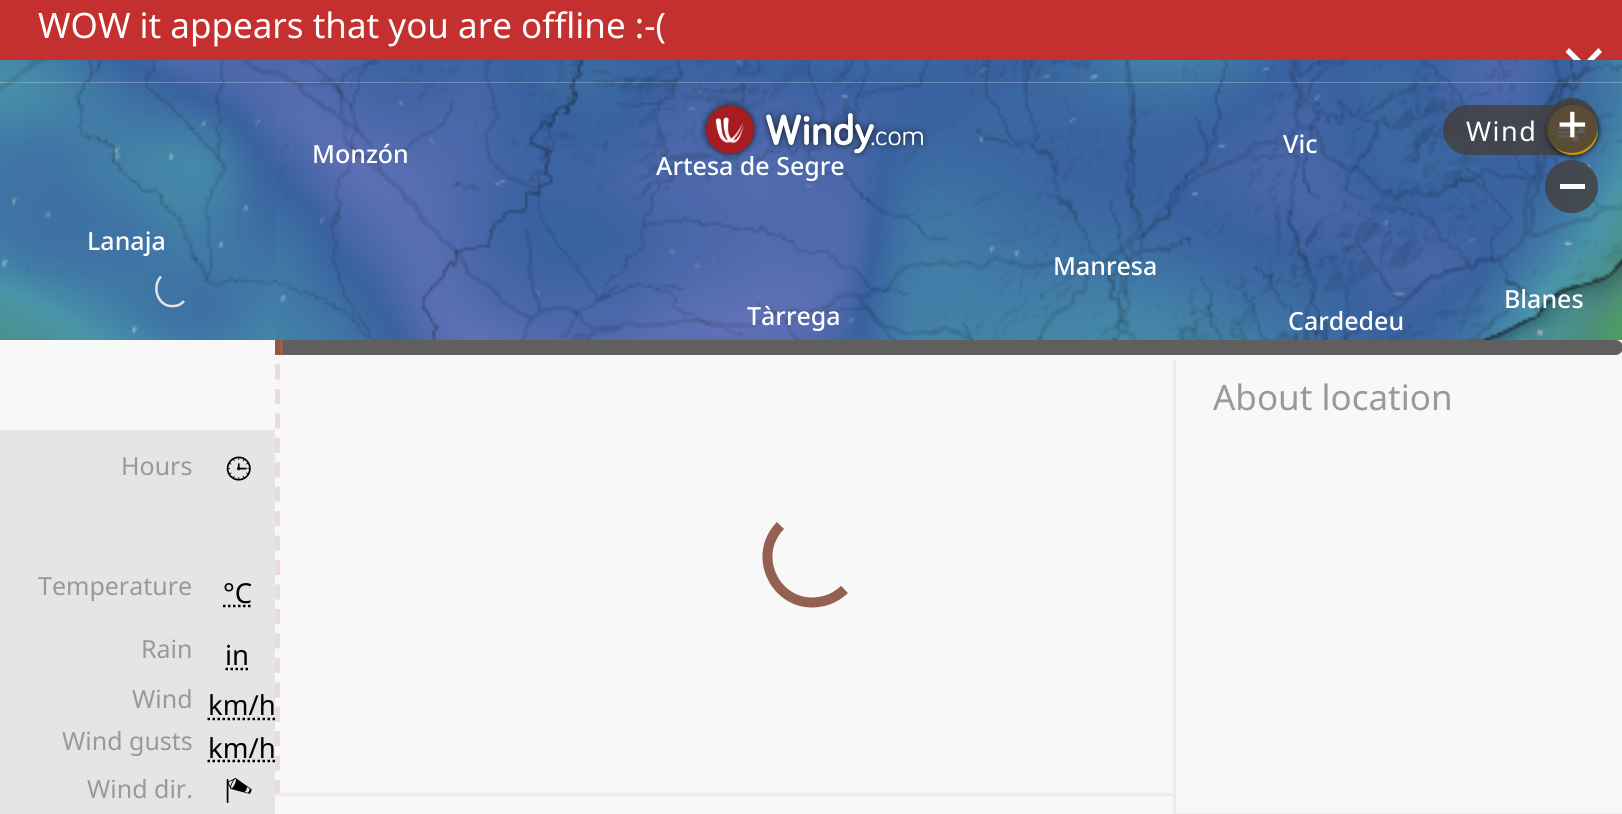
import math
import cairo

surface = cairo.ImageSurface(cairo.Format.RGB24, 1622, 814)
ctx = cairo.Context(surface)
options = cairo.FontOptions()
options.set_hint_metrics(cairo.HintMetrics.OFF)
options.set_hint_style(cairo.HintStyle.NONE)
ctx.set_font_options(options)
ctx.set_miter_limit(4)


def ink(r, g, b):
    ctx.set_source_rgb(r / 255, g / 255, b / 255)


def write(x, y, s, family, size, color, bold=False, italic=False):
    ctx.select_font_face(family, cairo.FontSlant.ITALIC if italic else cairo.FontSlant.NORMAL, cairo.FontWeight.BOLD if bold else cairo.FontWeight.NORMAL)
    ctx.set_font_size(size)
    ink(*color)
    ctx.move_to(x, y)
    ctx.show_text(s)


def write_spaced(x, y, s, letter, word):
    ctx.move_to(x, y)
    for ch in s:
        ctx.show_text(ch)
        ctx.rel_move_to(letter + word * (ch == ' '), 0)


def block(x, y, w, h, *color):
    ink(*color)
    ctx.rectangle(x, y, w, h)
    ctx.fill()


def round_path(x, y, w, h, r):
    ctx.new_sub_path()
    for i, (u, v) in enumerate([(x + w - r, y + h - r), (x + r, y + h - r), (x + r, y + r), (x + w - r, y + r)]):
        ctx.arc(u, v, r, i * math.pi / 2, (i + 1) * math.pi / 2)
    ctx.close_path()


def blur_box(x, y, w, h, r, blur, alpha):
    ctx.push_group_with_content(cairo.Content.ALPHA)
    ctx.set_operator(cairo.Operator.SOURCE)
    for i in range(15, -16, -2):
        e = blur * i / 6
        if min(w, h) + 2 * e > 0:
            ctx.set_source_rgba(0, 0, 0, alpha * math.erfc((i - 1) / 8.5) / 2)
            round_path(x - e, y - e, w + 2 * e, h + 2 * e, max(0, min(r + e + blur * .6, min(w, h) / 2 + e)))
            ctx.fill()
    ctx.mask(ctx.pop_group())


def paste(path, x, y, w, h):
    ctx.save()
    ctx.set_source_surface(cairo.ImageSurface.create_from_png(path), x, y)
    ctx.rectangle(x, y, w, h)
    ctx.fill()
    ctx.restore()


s1 = dict(family="Noto Sans", size=35, color=(255, 255, 255))
s2 = dict(family="Noto Sans Medium", size=25, color=(255, 255, 255))
s3 = dict(family="Noto Sans", size=35, color=(153, 153, 153))
s4 = dict(family="Noto Sans", size=25, color=(153, 153, 153))
s5 = dict(family="Noto Sans", size=27.5, color=(0, 0, 0))

ink(255, 255, 255)
ctx.paint()
block(0, 0, 1622, 60, 196, 47, 47)
write(38, 38, "WOW it appears that you are offline :-(", **s1)
ctx.save()
ctx.rectangle(0, 0, 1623, 60)
ctx.clip()
ctx.new_path()
ctx.move_to(1602, 52)
ctx.line_to(1598.5, 48)
ctx.line_to(1584, 63)
ctx.line_to(1569, 48)
ctx.line_to(1565.5, 52)
ctx.line_to(1580, 66.5)
ctx.line_to(1565.5, 81)
ctx.line_to(1569, 84.5)
ctx.line_to(1584, 70)
ctx.line_to(1598.5, 84.5)
ctx.line_to(1602, 81)
ctx.line_to(1587.5, 66.5)
ctx.close_path()
ctx.fill()
ctx.restore()
paste("pic10.png", 275, 82, 640, 258)
paste("pic9.png", 0, 82, 275, 258)
paste("pic5.png", 0, 60, 275, 23)
paste("pic6.png", 275, 60, 640, 23)
paste("pic11.png", 915, 82, 640, 258)
paste("pic7.png", 915, 60, 640, 23)
paste("pic12.png", 1555, 82, 67, 258)
paste("pic8.png", 1555, 60, 67, 23)
paste("pic21.png", 1, 60, 1590, 280)
paste("pic18.png", 275, 83, 640, 257)
write(656, 175, "Artesa de Segre", **s2)
paste("pic1.png", 701, 100, 59, 59)
paste("pic19.png", 915, 83, 640, 257)
paste("pic2.png", 761, 109, 167, 49)
paste("pic20.png", 1555, 83, 67, 247)
ctx.set_source_rgba(0.267, 0.255, 0.255, 0.84)
round_path(1443, 105, 155, 50, 25)
ctx.fill()
ctx.select_font_face("Noto Sans")
ctx.set_font_size(27)
ink(255, 255, 255)
write_spaced(1466, 141, "Wind", 1.5, 0)
ctx.save()
ctx.set_fill_rule(cairo.FillRule.EVEN_ODD)
ctx.new_path()
ctx.move_to(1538, 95)
ctx.line_to(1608, 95)
ctx.line_to(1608, 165)
ctx.line_to(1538, 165)
ctx.close_path()
ctx.move_to(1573, 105)
ctx.curve_to(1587, 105, 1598, 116, 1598, 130)
ctx.curve_to(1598, 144, 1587, 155, 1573, 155)
ctx.curve_to(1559, 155, 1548, 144, 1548, 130)
ctx.curve_to(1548, 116, 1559, 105, 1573, 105)
ctx.close_path()
ctx.clip()
ink(0, 0, 0)
blur_box(1548, 105, 50, 50, 25, 3, 1)
ctx.restore()
ink(212, 149, 0)
ctx.arc(1573, 130, 25, 0, 2 * math.pi)
ctx.fill()
paste("pic3.png", 1558, 126, 27, 16)
ctx.set_source_rgba(0.267, 0.255, 0.255, 0.84)
round_path(1545, 98, 53, 55, 26.5)
ctx.fill()
paste("pic4.png", 1559, 111, 27, 27)
ctx.arc(1571.5, 186.5, 26.5, 0, 2 * math.pi)
ctx.fill()
block(1560, 184, 25, 5, 255, 255, 255)
paste("pic13.png", 5, 60, 270, 23)
paste("pic14.png", 275, 60, 638, 23)
paste("pic15.png", 917, 60, 638, 23)
paste("pic16.png", 1555, 60, 67, 23)
paste("pic17.png", 0, 83, 275, 206)
write(87, 250, "Lanaja", **s2)
write(312, 163, "Monzón", **s2)
write(747, 325, "Tàrrega", **s2)
write(1283, 153, "Vic", **s2)
write(1053, 275, "Manresa", **s2)
write(1504, 308, "Blanes", **s2)
write(1288, 330, "Cardedeu", **s2)
ctx.new_path()
ctx.move_to(184, 301)
ctx.curve_to(181.5, 304, 178, 306, 174, 306)
ctx.curve_to(158, 308, 151, 287, 161, 276.5)
ink(229, 229, 229)
ctx.set_line_width(2.5)
ctx.stroke()
block(0, 340, 1622, 474, 248, 248, 248)
ink(97, 94, 94)
round_path(275, 340, 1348, 15, 7.5)
ctx.fill()
block(275, 340, 8, 15, 148, 96, 81)
ctx.new_path()
ctx.move_to(277.5, 340)
ctx.line_to(277.5, 795)
ctx.set_source_rgba(0.616, 0.012, 0, 0.12)
ctx.set_line_width(5)
ctx.set_dash([15, 9.45])
ctx.stroke()
block(1173, 813, 449, 1, 237, 237, 237)
block(1173, 360, 3, 454, 237, 237, 237)
block(275, 793, 900, 3, 237, 237, 237)
write(1213, 410, "About location", **s3)
block(0, 430, 275, 384, 229, 229, 229)
write(121, 475, "Hours", **s4)
paste("pic22.png", 226, 456, 25, 25)
write(38, 595, "Temperature", **s4)
write(223, 603, "°C", **s5)
ctx.new_path()
ctx.move_to(223, 606)
ctx.line_to(252, 606)
ctx.set_line_width(2.5)
ctx.set_dash([2.5, 2.5])
ctx.stroke()
write(141, 658, "Rain", **s4)
write(225, 665, "in", **s5)
ctx.new_path()
ctx.move_to(225.5, 669)
ctx.line_to(249.5, 669)
ctx.stroke()
write(132, 708, "Wind", **s4)
write(208, 715, "km/h", **s5)
ctx.new_path()
ctx.move_to(207.5, 719)
ctx.line_to(275, 719)
ctx.stroke()
write(62, 750, "Wind gusts", **s4)
write(208, 758, "km/h", **s5)
ctx.new_path()
ctx.move_to(207.5, 761)
ctx.line_to(275, 761)
ctx.stroke()
write(87, 798, "Wind dir.", **s4)
paste("pic23.png", 226, 778, 26, 25)
ctx.new_path()
ctx.move_to(844.5, 589.5)
ctx.curve_to(838, 595.5, 830, 600, 821.5, 601.5)
ctx.curve_to(778, 610.5, 749.5, 557, 780.5, 525.5)
ink(148, 96, 81)
ctx.set_line_width(10)
ctx.set_dash([])
ctx.stroke()
surface.write_to_png("screenshot.png")
